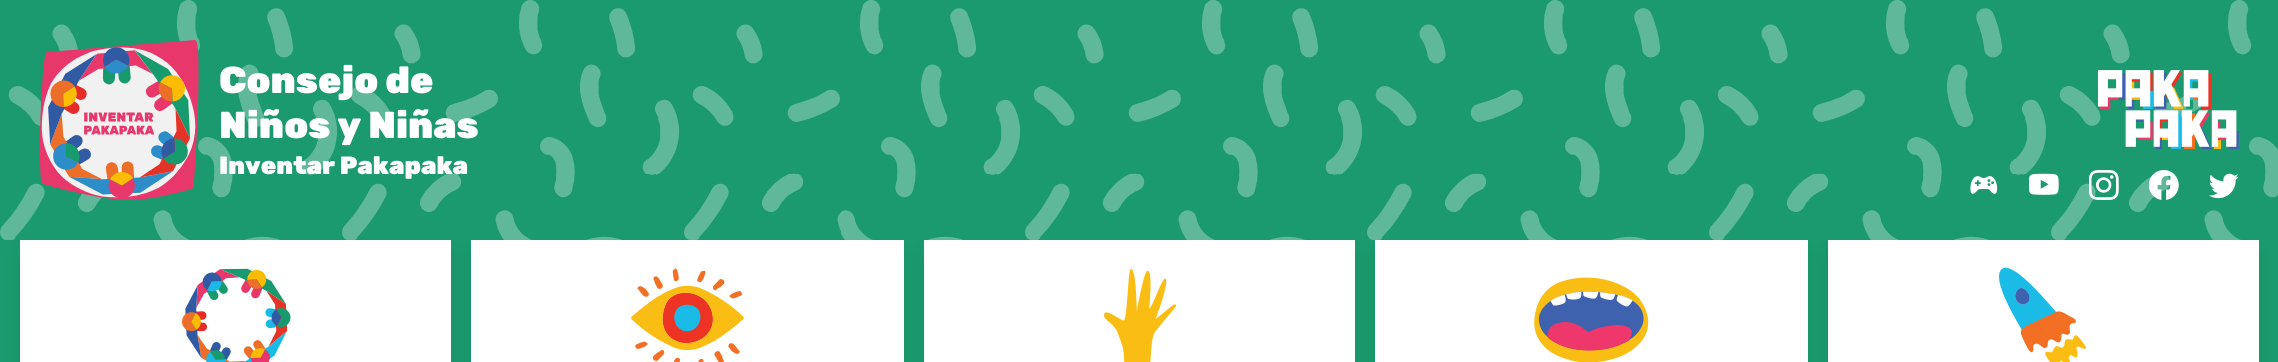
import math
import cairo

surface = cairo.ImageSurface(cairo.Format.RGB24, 2278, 362)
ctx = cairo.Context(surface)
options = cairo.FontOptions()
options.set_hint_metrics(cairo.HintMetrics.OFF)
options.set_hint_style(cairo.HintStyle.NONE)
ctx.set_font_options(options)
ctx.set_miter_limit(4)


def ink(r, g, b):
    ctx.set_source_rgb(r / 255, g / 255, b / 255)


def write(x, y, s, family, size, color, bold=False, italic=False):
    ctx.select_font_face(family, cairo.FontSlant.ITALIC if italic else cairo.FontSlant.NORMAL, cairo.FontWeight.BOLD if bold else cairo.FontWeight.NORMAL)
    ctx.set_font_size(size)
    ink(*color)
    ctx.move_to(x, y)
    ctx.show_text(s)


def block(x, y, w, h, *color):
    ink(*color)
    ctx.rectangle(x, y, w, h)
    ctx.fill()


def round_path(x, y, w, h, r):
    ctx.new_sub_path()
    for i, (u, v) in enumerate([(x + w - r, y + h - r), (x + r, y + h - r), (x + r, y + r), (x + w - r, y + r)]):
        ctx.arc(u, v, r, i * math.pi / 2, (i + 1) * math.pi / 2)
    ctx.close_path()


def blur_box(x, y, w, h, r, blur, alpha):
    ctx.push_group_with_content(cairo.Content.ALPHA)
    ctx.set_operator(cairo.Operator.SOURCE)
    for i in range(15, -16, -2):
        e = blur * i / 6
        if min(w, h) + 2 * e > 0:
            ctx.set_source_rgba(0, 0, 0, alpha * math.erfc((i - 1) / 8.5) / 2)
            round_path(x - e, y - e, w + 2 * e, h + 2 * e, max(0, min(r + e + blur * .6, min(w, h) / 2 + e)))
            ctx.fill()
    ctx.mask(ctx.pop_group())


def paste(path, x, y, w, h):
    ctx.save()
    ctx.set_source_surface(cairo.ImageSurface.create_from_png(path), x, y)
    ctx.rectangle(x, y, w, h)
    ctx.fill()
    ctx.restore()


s1 = dict(family="Rubik Black", size=37.5, color=(255, 255, 255))
s2 = dict(family="Rubik Black", size=25, color=(255, 255, 255))

ink(26, 154, 110)
ctx.paint()
paste("pic1.png", 0, 0, 2278, 240)
paste("pic2.png", 40, 40, 159, 160)
write(219, 93, "Consejo de", **s1)
write(219, 138, "Niños y Niñas", **s1)
write(219, 174, "Inventar Pakapaka", **s2)
paste("pic3.png", 2098, 70, 141, 80)
paste("pic4.png", 1970, 176, 28, 18)
paste("pic5.png", 2029, 173, 30, 22)
paste("pic6.png", 2089, 170, 30, 30)
paste("pic7.png", 2149, 170, 30, 30)
paste("pic8.png", 2209, 173, 30, 26)
ink(0, 0, 0)
blur_box(24, 256, 424, 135, 0, 9.5, 0.1)
block(20, 240, 431, 122, 255, 255, 255)
paste("pic9.png", 182, 268, 109, 94)
ink(0, 0, 0)
blur_box(475, 256, 425, 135, 0, 9.5, 0.1)
block(471, 240, 433, 122, 255, 255, 255)
paste("pic10.png", 631, 268, 113, 94)
ink(0, 0, 0)
blur_box(928, 256, 423, 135, 0, 9.5, 0.1)
block(924, 240, 431, 122, 255, 255, 255)
paste("pic11.png", 1104, 269, 72, 93)
ink(0, 0, 0)
blur_box(1379, 256, 425, 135, 0, 9.5, 0.1)
block(1375, 240, 433, 122, 255, 255, 255)
paste("pic12.png", 1534, 277, 115, 85)
ink(0, 0, 0)
blur_box(1831, 256, 424, 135, 0, 9.5, 0.1)
block(1828, 240, 431, 122, 255, 255, 255)
paste("pic13.png", 1999, 267, 87, 95)
surface.write_to_png("screenshot.png")
